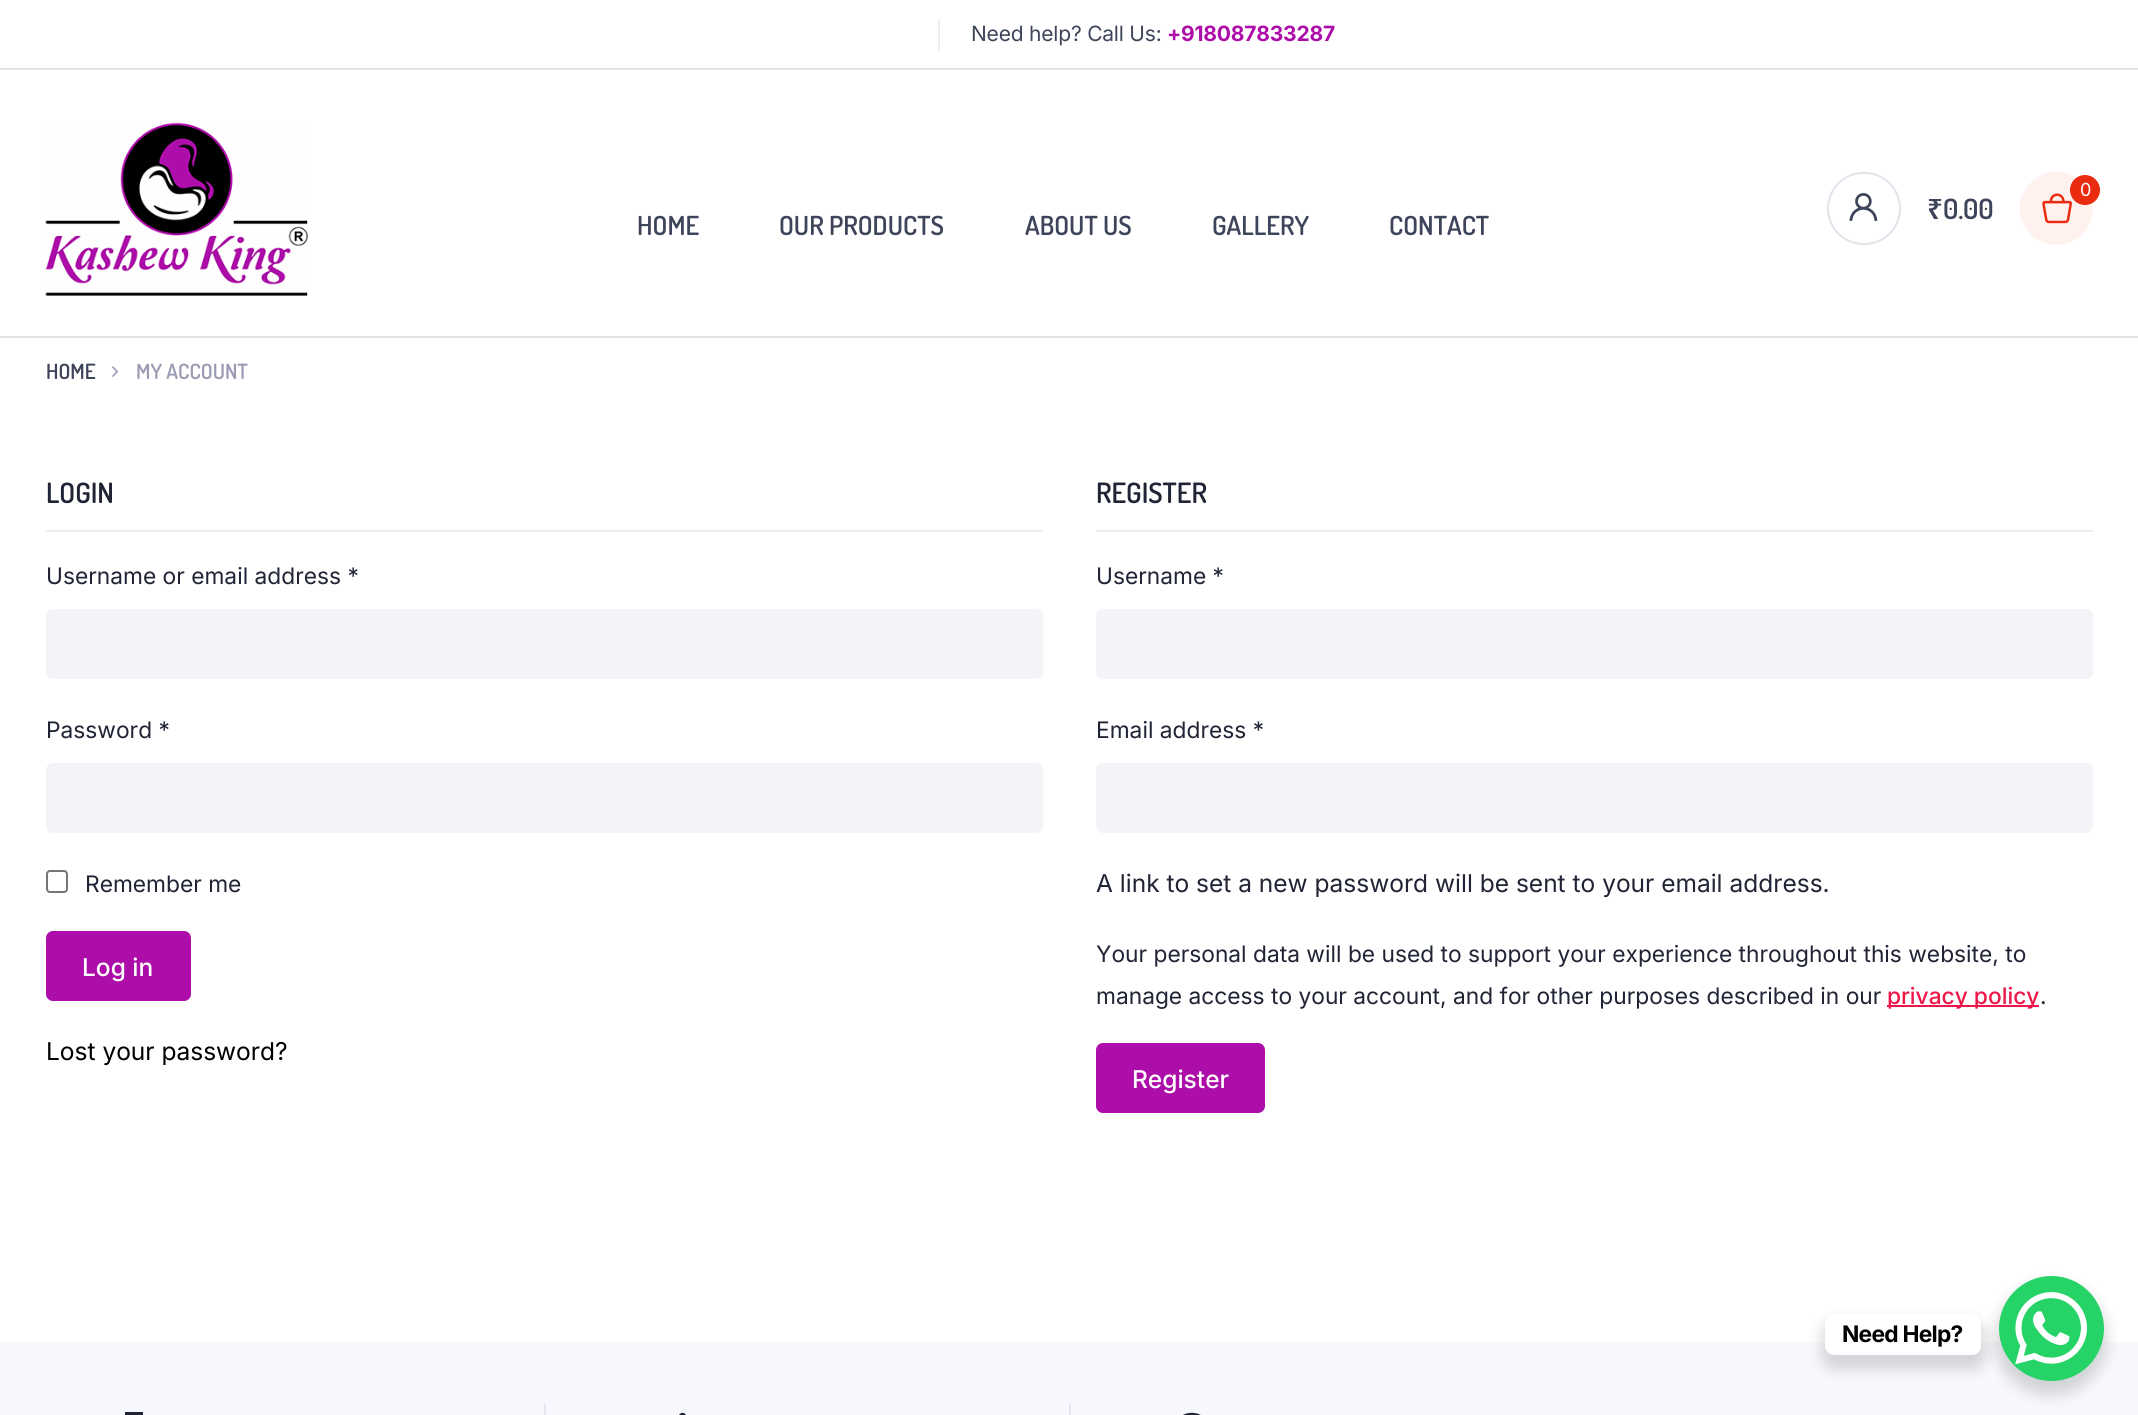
import math
import cairo

surface = cairo.ImageSurface(cairo.Format.RGB24, 2138, 1415)
ctx = cairo.Context(surface)
options = cairo.FontOptions()
options.set_hint_metrics(cairo.HintMetrics.OFF)
options.set_hint_style(cairo.HintStyle.NONE)
ctx.set_font_options(options)
ctx.set_miter_limit(4)


def ink(r, g, b):
    ctx.set_source_rgb(r / 255, g / 255, b / 255)


def write(x, y, s, family, size, color, bold=False, italic=False):
    ctx.select_font_face(family, cairo.FontSlant.ITALIC if italic else cairo.FontSlant.NORMAL, cairo.FontWeight.BOLD if bold else cairo.FontWeight.NORMAL)
    ctx.set_font_size(size)
    ink(*color)
    ctx.move_to(x, y)
    ctx.show_text(s)


def write_spaced(x, y, s, letter, word):
    ctx.move_to(x, y)
    for ch in s:
        ctx.show_text(ch)
        ctx.rel_move_to(letter + word * (ch == ' '), 0)


def block(x, y, w, h, *color):
    ink(*color)
    ctx.rectangle(x, y, w, h)
    ctx.fill()


def round_path(x, y, w, h, r):
    ctx.new_sub_path()
    for i, (u, v) in enumerate([(x + w - r, y + h - r), (x + r, y + h - r), (x + r, y + r), (x + w - r, y + r)]):
        ctx.arc(u, v, r, i * math.pi / 2, (i + 1) * math.pi / 2)
    ctx.close_path()


def blur_box(x, y, w, h, r, blur, alpha):
    ctx.push_group_with_content(cairo.Content.ALPHA)
    ctx.set_operator(cairo.Operator.SOURCE)
    for i in range(15, -16, -2):
        e = blur * i / 6
        if min(w, h) + 2 * e > 0:
            ctx.set_source_rgba(0, 0, 0, alpha * math.erfc((i - 1) / 8.5) / 2)
            round_path(x - e, y - e, w + 2 * e, h + 2 * e, max(0, min(r + e + blur * .6, min(w, h) / 2 + e)))
            ctx.fill()
    ctx.mask(ctx.pop_group())


def paste(path, x, y, w, h):
    ctx.save()
    ctx.set_source_surface(cairo.ImageSurface.create_from_png(path), x, y)
    ctx.rectangle(x, y, w, h)
    ctx.fill()
    ctx.restore()


s1 = dict(family="Dosis SemiBold", size=26.25, color=(62, 68, 90))
s2 = dict(family="Dosis SemiBold", size=21, color=(62, 68, 90))
s3 = dict(family="Dosis SemiBold", size=21, color=(155, 155, 180))
s4 = dict(family="Dosis SemiBold", size=28, color=(32, 36, 53))
s5 = dict(family="Inter", size=22.75, color=(32, 36, 53))
s6 = dict(family="Inter Medium", size=24.5, color=(255, 255, 255))
s7 = dict(family="Inter", size=24.5, color=(0, 0, 0))
s8 = dict(family="Inter", size=24.5, color=(32, 36, 53))
s9 = dict(family="Inter Medium", size=22.75, color=(237, 23, 74))

ink(255, 255, 255)
ctx.paint()
block(0, 68, 2138, 2, 227, 228, 230)
block(938, 19, 2, 32, 237, 238, 245)
ctx.select_font_face("Inter")
ctx.set_font_size(21)
ink(62, 68, 90)
write_spaced(971, 41, "Need help? Call Us:", -0.2, 0)
ctx.select_font_face("Inter", cairo.FontSlant.NORMAL, cairo.FontWeight.BOLD)
ink(173, 14, 169)
write_spaced(1167, 41, "+918087833287", -0.2, 0)
paste("pic1.png", 45, 122, 263, 174)
round_path(1828, 173, 72, 71, 35.5)
ink(226, 228, 236)
ctx.stroke()
paste("pic2.png", 1849, 193, 29, 29)
ink(255, 241, 238)
ctx.arc(2056.5, 208.5, 36.5, 0, 2 * math.pi)
ctx.fill()
paste("pic3.png", 2042, 193, 30, 31)
ink(234, 43, 15)
ctx.arc(2085, 190, 15, 0, 2 * math.pi)
ctx.fill()
ctx.select_font_face("Inter")
ctx.set_font_size(18)
ink(255, 255, 255)
write_spaced(2080, 196, "0", -0.2, 0)
ctx.select_font_face("Noto Sans SemiBold")
ctx.set_font_size(28)
ink(62, 68, 90)
write_spaced(1927, 219, "₹", -0.2, 0)
ctx.select_font_face("Dosis SemiBold")
write_spaced(1943, 219, "0.00", -0.2, 0)
block(0, 336, 2138, 2, 227, 228, 230)
write(637, 235, "HOME", **s1)
write(779, 235, "OUR PRODUCTS", **s1)
write(1025, 235, "ABOUT US", **s1)
write(1212, 235, "GALLERY", **s1)
write(1389, 235, "CONTACT", **s1)
write(46, 379, "HOME", **s2)
paste("pic4.png", 112, 366, 6, 11)
write(136, 379, "MY ACCOUNT", **s3)
block(46, 530, 997, 2, 237, 238, 245)
write(46, 503, "LOGIN", **s4)
write(46, 584, "Username or email address *", **s5)
ink(243, 244, 247)
round_path(46, 609, 997, 70, 7)
ctx.fill()
write(46, 738, "Password *", **s5)
ink(243, 244, 247)
round_path(46, 763, 997, 70, 7)
ctx.fill()
round_path(47, 871, 20, 21, 3)
ink(118, 118, 118)
ctx.stroke()
write(85, 892, "Remember me", **s5)
ink(173, 14, 169)
round_path(46, 931, 145, 70, 7)
ctx.fill()
write(82, 976, "Log in", **s6)
write(46, 1060, "Lost your password?", **s7)
block(1096, 530, 997, 2, 237, 238, 245)
write(1096, 503, "REGISTER", **s4)
write(1096, 584, "Username *", **s5)
ink(243, 244, 247)
round_path(1096, 609, 997, 70, 7)
ctx.fill()
write(1096, 738, "Email address *", **s5)
ink(243, 244, 247)
round_path(1096, 763, 997, 70, 7)
ctx.fill()
write(1096, 892, "A link to set a new password will be sent to your email address.", **s8)
write(1096, 962, "Your personal data will be used to support your experience throughout this website, to", **s5)
write(1096, 1004, "manage access to your account, and for other purposes described in our", **s5)
block(1887, 1005, 152, 2, 237, 23, 74)
write(1887, 1004, "privacy policy", **s9)
write(2040, 1004, ".", **s5)
ink(173, 14, 169)
round_path(1096, 1043, 169, 70, 7)
ctx.fill()
write(1132, 1088, "Register", **s6)
block(0, 1342, 2138, 73, 247, 248, 253)
ink(0, 0, 0)
blur_box(1995, 1283, 112, 112, 56, 7, 0.15)
ink(37, 211, 102)
ctx.arc(2051.5, 1328.5, 52.5, 0, 2 * math.pi)
ctx.fill()
ink(0, 0, 0)
blur_box(1822, 1321, 163, 48, 12, 7, 0.15)
ink(255, 255, 255)
round_path(1825, 1314, 156, 41, 9)
ctx.fill()
ctx.select_font_face("Inter", cairo.FontSlant.NORMAL, cairo.FontWeight.BOLD)
ctx.set_font_size(22.75)
ink(0, 0, 0)
write_spaced(1842, 1342, "Need Help?", -0.75, 0)
paste("pic5.png", 2015, 1292, 72, 73)
block(125, 1412, 18, 3, 32, 36, 53)
block(544, 1404, 2, 11, 228, 229, 238)
paste("pic6.png", 679, 1412, 7, 3)
block(1069, 1404, 2, 11, 228, 229, 238)
paste("pic7.png", 1183, 1412, 18, 3)
surface.write_to_png("screenshot.png")
